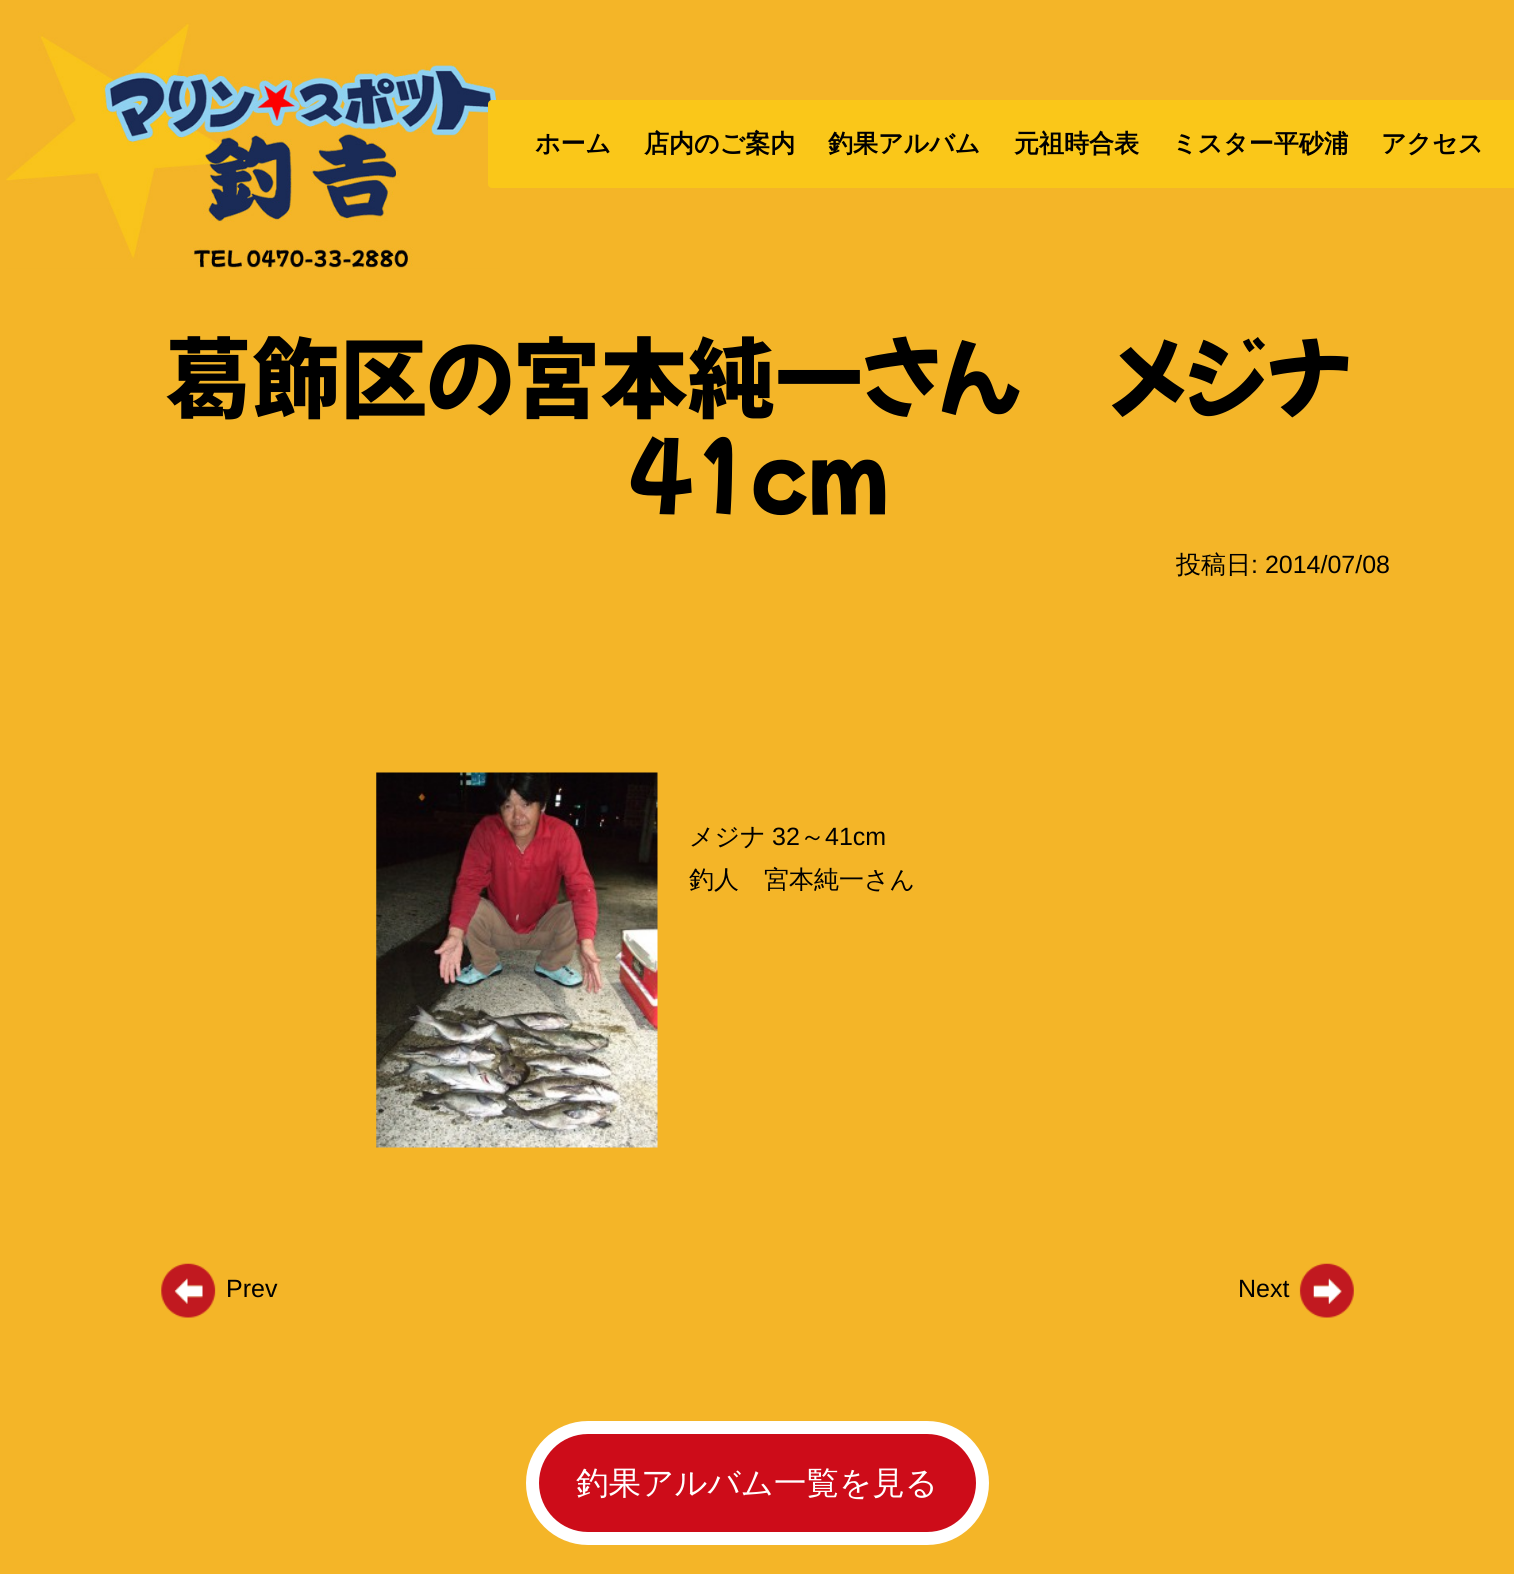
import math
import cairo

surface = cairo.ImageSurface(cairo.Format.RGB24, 1514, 1574)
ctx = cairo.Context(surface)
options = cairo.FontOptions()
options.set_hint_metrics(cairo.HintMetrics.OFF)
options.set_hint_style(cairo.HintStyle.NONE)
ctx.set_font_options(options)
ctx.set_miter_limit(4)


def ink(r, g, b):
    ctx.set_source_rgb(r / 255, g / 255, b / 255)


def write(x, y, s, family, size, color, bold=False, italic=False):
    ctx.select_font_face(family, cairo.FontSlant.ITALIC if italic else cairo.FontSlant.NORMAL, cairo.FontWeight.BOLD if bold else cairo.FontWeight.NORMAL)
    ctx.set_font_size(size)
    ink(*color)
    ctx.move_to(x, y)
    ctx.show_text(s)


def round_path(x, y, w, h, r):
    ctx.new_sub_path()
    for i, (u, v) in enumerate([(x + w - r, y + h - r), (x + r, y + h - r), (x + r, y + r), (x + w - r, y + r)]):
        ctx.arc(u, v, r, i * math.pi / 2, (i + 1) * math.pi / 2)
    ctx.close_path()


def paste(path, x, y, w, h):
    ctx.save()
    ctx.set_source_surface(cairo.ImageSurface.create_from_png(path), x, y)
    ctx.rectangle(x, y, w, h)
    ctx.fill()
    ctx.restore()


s1 = dict(family="WenQuanYi Zen Hei", size=25, color=(0, 0, 0), bold=True)
s2 = dict(family="Mochiy Pop P One", size=87.5, color=(0, 0, 0))
s3 = dict(family="WenQuanYi Zen Hei Medium", size=25, color=(0, 0, 0))
s4 = dict(family="Liberation Sans", size=25, color=(0, 0, 0))
s5 = dict(family="WenQuanYi Zen Hei Medium", size=32.5, color=(255, 255, 255))

ink(244, 181, 40)
ctx.paint()
paste("pic1.png", 6, 23, 494, 246)
ink(250, 199, 25)
round_path(488, 100, 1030, 88, 4)
ctx.fill()
write(535, 152, "ホーム", **s1)
write(644, 152, "店内のご案内", **s1)
write(828, 152, "釣果アルバム", **s1)
write(1014, 152, "元祖時合表", **s1)
write(1172, 152, "ミスター平砂浦", **s1)
write(1381, 152, "アクセス", **s1)
write(165, 411, "葛飾区の宮本純一さん　メジナ", **s2)
write(627, 508, "41cm", **s2)
write(1176, 573, "投稿日", **s3)
write(1251, 573, ": 2014/07/08", **s4)
paste("pic2.png", 376, 772, 282, 376)
write(689, 845, "メジナ", **s3)
write(772, 845, "32", **s4)
write(800, 845, "～", **s3)
write(825, 845, "41cm", **s4)
write(689, 888, "釣人　宮本純一さん", **s3)
paste("pic3.png", 161, 1263, 55, 55)
write(226, 1297, "Prev", **s4)
write(1238, 1297, "Next", **s4)
paste("pic4.png", 1299, 1263, 55, 55)
ink(205, 12, 25)
round_path(532.5, 1427.5, 450, 111, 55.5)
ctx.fill_preserve()
ink(255, 255, 255)
ctx.set_line_width(13)
ctx.stroke()
write(576, 1494, "釣果アルバム一覧を見る", **s5)
surface.write_to_png("screenshot.png")
